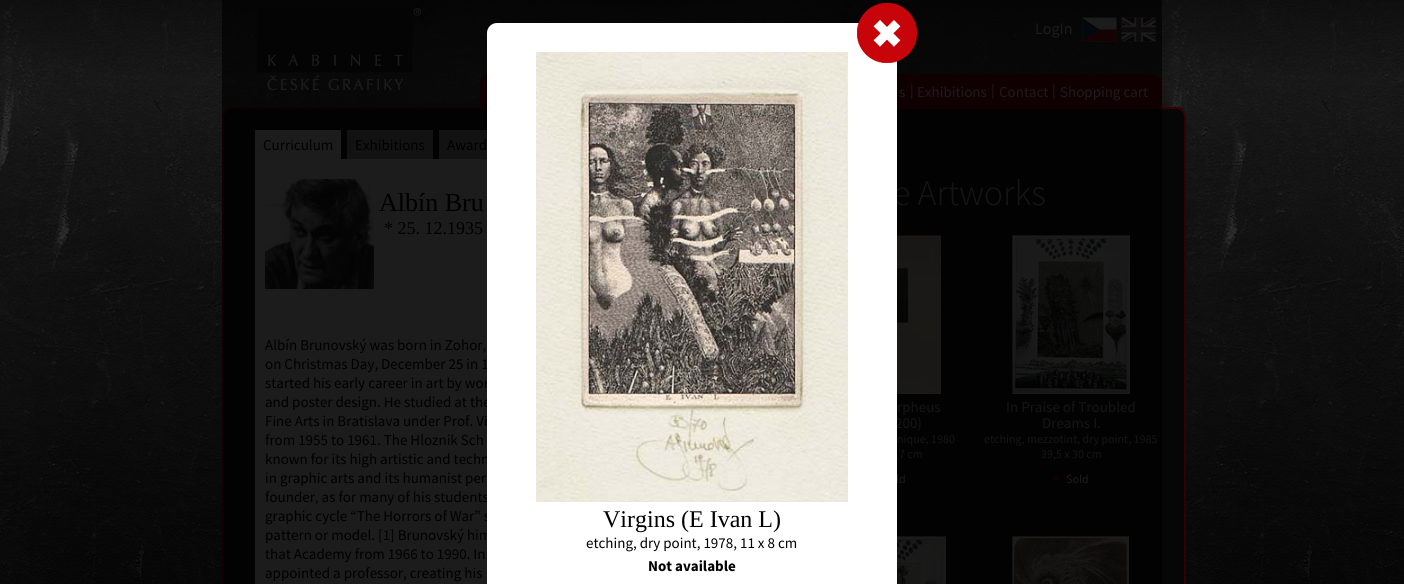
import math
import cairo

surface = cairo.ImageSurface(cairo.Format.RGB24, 1404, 584)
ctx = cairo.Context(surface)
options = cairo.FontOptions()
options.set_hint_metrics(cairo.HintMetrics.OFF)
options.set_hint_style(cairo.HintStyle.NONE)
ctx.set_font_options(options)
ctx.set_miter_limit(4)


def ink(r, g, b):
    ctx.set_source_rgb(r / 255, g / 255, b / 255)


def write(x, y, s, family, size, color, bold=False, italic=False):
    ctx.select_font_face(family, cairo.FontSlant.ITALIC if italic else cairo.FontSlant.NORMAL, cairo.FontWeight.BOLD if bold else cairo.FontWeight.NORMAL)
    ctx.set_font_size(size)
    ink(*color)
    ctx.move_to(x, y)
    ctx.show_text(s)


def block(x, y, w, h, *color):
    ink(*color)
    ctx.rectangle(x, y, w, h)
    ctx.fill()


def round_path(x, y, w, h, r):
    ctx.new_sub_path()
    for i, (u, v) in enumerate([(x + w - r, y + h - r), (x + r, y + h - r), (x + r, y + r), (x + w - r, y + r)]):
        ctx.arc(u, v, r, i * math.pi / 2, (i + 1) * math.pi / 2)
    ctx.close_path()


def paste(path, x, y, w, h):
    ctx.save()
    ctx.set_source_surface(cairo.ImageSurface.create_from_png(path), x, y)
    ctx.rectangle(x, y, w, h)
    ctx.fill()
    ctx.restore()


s1 = dict(family="Source Sans Pro", size=16, color=(84, 84, 84))
s2 = dict(family="Source Sans Pro", size=15, color=(84, 84, 84))
s3 = dict(family="Source Sans Pro", size=15, color=(0, 0, 0))
s4 = dict(family="Liberation Serif", size=26, color=(0, 0, 0))
s5 = dict(family="Liberation Serif", size=18, color=(0, 0, 0))
s6 = dict(family="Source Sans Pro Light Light", size=36, color=(63, 63, 63))
s7 = dict(family="Source Sans Pro", size=15, color=(63, 63, 63))
s8 = dict(family="Source Sans Pro", size=12, color=(63, 63, 63))
s9 = dict(family="Source Sans Pro", size=12, color=(84, 84, 84))
s10 = dict(family="Source Sans Pro", size=20, color=(53, 0, 4))
s11 = dict(family="Liberation Serif", size=24, color=(0, 0, 0))
s12 = dict(family="Source Sans Pro", size=15, color=(0, 0, 0), bold=True)

ink(255, 255, 255)
ctx.paint()
paste("pic1.png", 0, 0, 1404, 584)
paste("pic2.png", 257, 8, 164, 83)
write(1035, 34, "LogIn", **s1)
paste("pic3.png", 1082, 17, 35, 25)
paste("pic4.png", 1121, 17, 35, 25)
ink(6, 6, 6)
round_path(223, 108, 962, 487, 9)
ctx.fill_preserve()
ink(53, 0, 4)
ctx.stroke()
ctx.new_path()
ctx.move_to(490, 74.5)
ctx.line_to(1152, 74.5)
ctx.curve_to(1157, 74.5, 1161.5, 79, 1161.5, 84)
ctx.line_to(1161.5, 108.5)
ctx.line_to(480.5, 108.5)
ctx.line_to(480.5, 84)
ctx.curve_to(480.5, 79, 485, 74.5, 490, 74.5)
ctx.close_path()
ctx.fill_preserve()
ctx.set_line_width(1)
ctx.stroke()
write(899, 97, "s", **s2)
write(910, 95, "|", **s2)
write(917, 97, "Exhibitions", **s2)
write(991, 95, "|", **s2)
write(999, 97, "Contact", **s2)
write(1052, 95, "|", **s2)
write(1060, 97, "Shopping cart", **s2)
block(255, 130, 86, 29, 84, 84, 84)
write(263, 150, "Curriculum", **s3)
block(347, 130, 86, 29, 54, 54, 54)
write(355, 150, "Exhibitions", **s3)
block(439, 130, 48, 29, 54, 54, 54)
write(447, 150, "Award", **s3)
block(255, 159, 232, 425, 84, 84, 84)
paste("pic5.png", 265, 179, 109, 110)
write(379, 211, "Albín Bru", **s4)
write(384, 234, "* 25. 12.1935", **s5)
write(265, 350, "Albín Brunovský was born in Zohor,", **s3)
write(265, 369, "on Christmas Day, December 25 in 1", **s3)
write(265, 388, "started his early career in art by wor", **s3)
write(265, 407, "and poster design. He studied at the", **s3)
write(265, 426, "Fine Arts in Bratislava under Prof. Vi", **s3)
write(265, 445, "from 1955 to 1961. The Hloznik Sch", **s3)
write(265, 464, "known for its high artistic and techn", **s3)
write(265, 483, "in graphic arts and its humanist per", **s3)
write(265, 502, "founder, as for many of his students", **s3)
write(265, 521, "graphic cycle “The Horrors of War” s", **s3)
write(265, 540, "pattern or model. [1] Brunovský him", **s3)
write(265, 559, "that Academy from 1966 to 1990. In", **s3)
write(265, 578, "appointed a professor, creating his", **s3)
write(893, 205, "e Artworks", **s6)
paste("pic6.png", 897, 235, 45, 160)
write(897, 412, "rpheus", **s7)
write(895, 428, "200)", **s7)
write(897, 443, "nique, 1980", **s8)
write(896, 458, ",7 cm", **s8)
write(896, 483, "ld", **s9)
paste("pic7.png", 1012, 235, 118, 160)
write(1006, 412, "In Praise of Troubled", **s7)
write(1042, 428, "Dreams I.", **s7)
write(984, 443, "etching, mezzotint, dry point, 1985", **s8)
write(1041, 458, "39,5 x 30 cm", **s8)
write(1053, 484, "•", **s10)
write(1066, 483, "Sold", **s9)
paste("pic8.png", 897, 536, 50, 48)
paste("pic9.png", 1012, 536, 118, 48)
ctx.set_source_rgba(0, 0, 0, 0.67)
ctx.rectangle(222, 0, 940, 584)
ctx.fill()
ink(255, 255, 255)
round_path(487, 23, 410, 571, 10)
ctx.fill()
paste("pic10.png", 857, 3, 60, 60)
paste("pic11.png", 536, 52, 312, 450)
write(603, 527, "Virgins (E Ivan L)", **s11)
write(586, 548, "etching, dry point, 1978, 11 x 8 cm", **s3)
write(648, 571, "Not available", **s12)
surface.write_to_png("screenshot.png")
